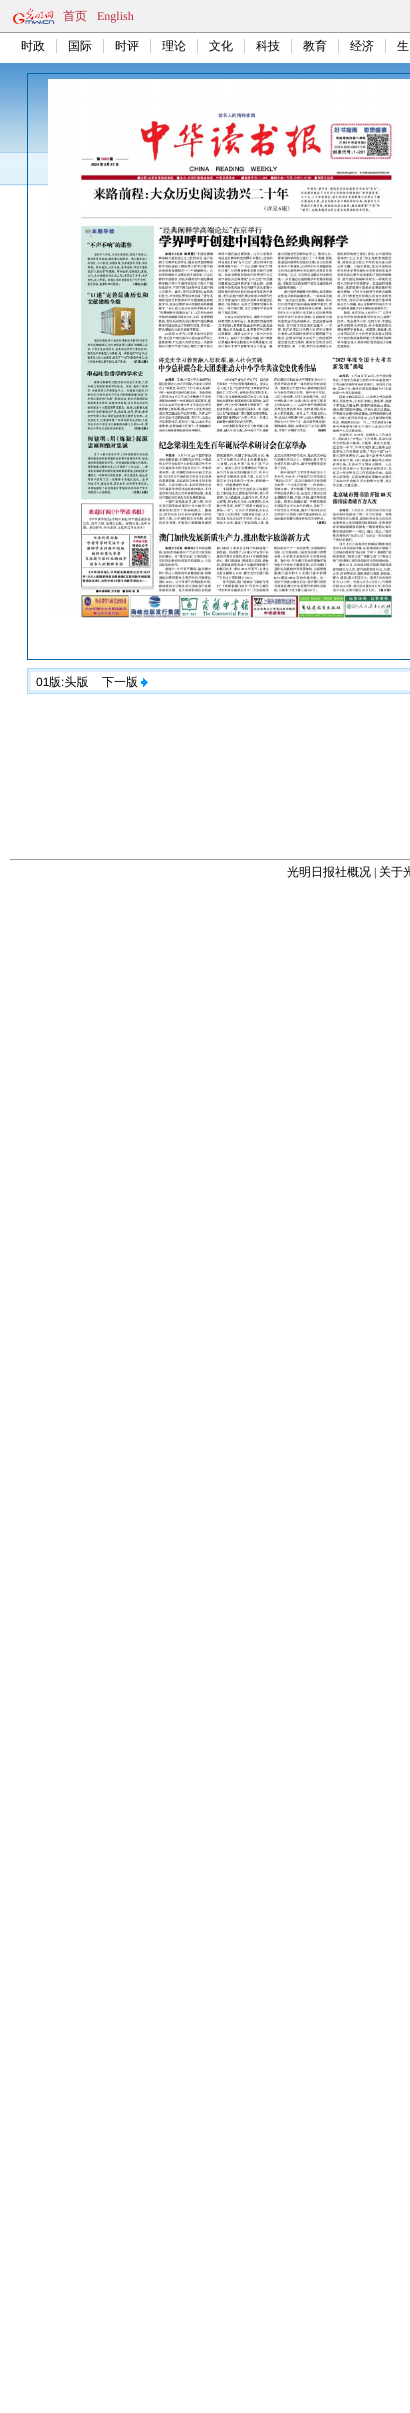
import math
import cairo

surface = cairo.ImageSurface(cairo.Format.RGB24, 410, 2413)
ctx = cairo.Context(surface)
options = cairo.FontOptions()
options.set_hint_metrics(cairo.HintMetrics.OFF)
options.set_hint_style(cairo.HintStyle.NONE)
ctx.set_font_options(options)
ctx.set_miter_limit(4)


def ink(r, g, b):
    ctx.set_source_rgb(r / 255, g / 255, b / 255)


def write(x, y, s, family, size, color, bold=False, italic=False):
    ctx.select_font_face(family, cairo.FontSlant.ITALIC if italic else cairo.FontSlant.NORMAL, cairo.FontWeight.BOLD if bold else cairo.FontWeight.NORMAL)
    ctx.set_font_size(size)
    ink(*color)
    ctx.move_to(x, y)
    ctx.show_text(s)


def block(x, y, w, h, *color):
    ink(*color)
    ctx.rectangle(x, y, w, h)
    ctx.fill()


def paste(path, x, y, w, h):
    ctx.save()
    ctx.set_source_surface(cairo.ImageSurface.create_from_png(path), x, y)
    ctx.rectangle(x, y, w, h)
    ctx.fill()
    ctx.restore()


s1 = dict(family="WenQuanYi Zen Hei Medium", size=12, color=(187, 39, 55))
s2 = dict(family="Liberation Serif", size=12, color=(187, 39, 55))
s3 = dict(family="WenQuanYi Zen Hei Medium", size=12, color=(0, 0, 0))
s4 = dict(family="Liberation Sans", size=12, color=(0, 0, 0))
s5 = dict(family="Liberation Serif", size=12, color=(0, 0, 0))

ink(255, 255, 255)
ctx.paint()
block(0, 0, 410, 32, 241, 241, 241)
block(0, 32, 410, 1, 153, 153, 153)
paste("pic1.png", 12, 7, 43, 18)
write(63, 20, "首页", **s1)
write(97, 20, "English", **s2)
block(56, 39, 1, 14, 204, 204, 204)
write(21, 50, "时政", **s3)
block(103, 39, 1, 14, 204, 204, 204)
write(68, 50, "国际", **s3)
block(150, 39, 1, 14, 204, 204, 204)
write(115, 50, "时评", **s3)
block(197, 39, 1, 14, 204, 204, 204)
write(162, 50, "理论", **s3)
block(244, 39, 1, 14, 204, 204, 204)
write(209, 50, "文化", **s3)
block(291, 39, 1, 14, 204, 204, 204)
write(256, 50, "科技", **s3)
block(338, 39, 1, 14, 204, 204, 204)
write(303, 50, "教育", **s3)
block(385, 39, 1, 14, 204, 204, 204)
write(350, 50, "经济", **s3)
write(397, 50, "生", **s3)
paste("pic2.png", 0, 63, 410, 89)
block(0, 152, 48, 1, 172, 208, 234)
paste("pic3.png", 0, 153, 48, 33)
ctx.rectangle(27.5, 73.5, 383, 586)
ink(0, 101, 167)
ctx.set_line_width(1)
ctx.stroke()
paste("pic4.png", 48, 79, 362, 539)
ctx.rectangle(27.5, 668.5, 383, 25)
ink(170, 219, 249)
ctx.stroke()
ctx.rectangle(29.5, 670.5, 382, 21)
ink(222, 240, 254)
ctx.set_line_width(3)
ctx.stroke()
write(36, 686, "01", **s4)
write(49, 686, "版 头版", **s3)
write(102, 686, "下一版", **s3)
paste("pic5.png", 141, 678, 7, 9)
write(61, 686, ":", **s4)
block(10, 859, 400, 1, 153, 153, 153)
write(287, 876, "光明日报社概况", **s3)
write(374, 876, "|", **s5)
write(379, 876, "关于光", **s3)
surface.write_to_png("screenshot.png")
